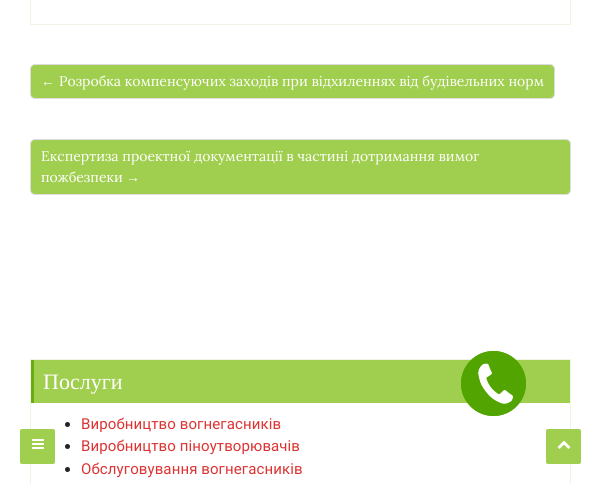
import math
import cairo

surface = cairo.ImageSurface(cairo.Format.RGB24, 601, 484)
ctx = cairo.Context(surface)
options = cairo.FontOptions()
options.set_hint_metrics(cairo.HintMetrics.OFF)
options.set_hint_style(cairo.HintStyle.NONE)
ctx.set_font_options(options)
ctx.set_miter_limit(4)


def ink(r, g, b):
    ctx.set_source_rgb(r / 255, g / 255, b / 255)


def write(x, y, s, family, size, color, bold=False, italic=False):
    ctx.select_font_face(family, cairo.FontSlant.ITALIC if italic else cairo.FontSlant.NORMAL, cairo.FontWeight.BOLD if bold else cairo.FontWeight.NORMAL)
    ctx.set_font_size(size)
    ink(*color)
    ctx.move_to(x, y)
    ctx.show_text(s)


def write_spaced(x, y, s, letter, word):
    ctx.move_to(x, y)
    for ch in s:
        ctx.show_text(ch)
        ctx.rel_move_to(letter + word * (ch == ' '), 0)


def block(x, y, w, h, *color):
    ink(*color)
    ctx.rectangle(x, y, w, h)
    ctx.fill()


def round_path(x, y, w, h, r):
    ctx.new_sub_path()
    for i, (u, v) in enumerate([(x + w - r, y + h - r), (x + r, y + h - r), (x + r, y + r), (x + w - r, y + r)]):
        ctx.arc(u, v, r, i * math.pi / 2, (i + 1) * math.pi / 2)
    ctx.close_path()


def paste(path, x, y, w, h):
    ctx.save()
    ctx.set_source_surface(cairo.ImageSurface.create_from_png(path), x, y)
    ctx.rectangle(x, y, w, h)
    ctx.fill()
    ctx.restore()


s1 = dict(family="Liberation Serif", size=14, color=(255, 255, 255))
s2 = dict(family="Lora", size=14, color=(255, 255, 255))
s3 = dict(family="Liberation Serif", size=22, color=(255, 255, 255))

ink(255, 255, 255)
ctx.paint()
ctx.rectangle(30.5, -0.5, 540, 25)
ink(237, 245, 226)
ctx.set_line_width(1)
ctx.stroke()
ink(160, 206, 78)
round_path(30.5, 64.5, 524, 34, 4.5)
ctx.fill_preserve()
ink(221, 221, 221)
ctx.stroke()
write(41, 86, "←", **s1)
write(59, 86, "Розробка компенсуючих заходів при відхиленнях від будівельних норм", **s2)
ink(160, 206, 78)
round_path(30.5, 139.5, 540, 55, 4.5)
ctx.fill_preserve()
ink(221, 221, 221)
ctx.stroke()
write(41, 161, "Експертиза проектної документації в частині дотримання вимог", **s2)
write(41, 182, "пожбезпеки", **s2)
write(126, 182, "→", **s1)
ctx.rectangle(30.5, 359.5, 540, 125)
ink(237, 245, 226)
ctx.stroke()
block(34, 360, 536, 43, 160, 206, 78)
block(31, 360, 3, 43, 104, 172, 16)
write(43, 389, "Послуги", **s3)
ink(33, 37, 41)
ctx.new_path()
ctx.arc(67.5, 424.5, 2.5, 0, 2 * math.pi)
ctx.fill()
ctx.select_font_face("Roboto")
ctx.set_font_size(15)
ink(221, 51, 51)
write_spaced(81, 429, "Виробництво вогнегасників", 0.1, 0)
ink(33, 37, 41)
ctx.new_path()
ctx.arc(67.5, 446.5, 2.5, 0, 2 * math.pi)
ctx.fill()
ink(221, 51, 51)
write_spaced(81, 451, "Виробництво піноутворювачів", 0.1, 0)
ink(33, 37, 41)
ctx.new_path()
ctx.arc(67.5, 469.5, 2.5, 0, 2 * math.pi)
ctx.fill()
ink(221, 51, 51)
write_spaced(81, 474, "Обслуговування вогнегасників", 0.1, 0)
ctx.new_path()
ctx.arc(493.5, 383.5, 32, 0, 2 * math.pi)
ink(82, 164, 0)
ctx.stroke()
ctx.arc(493.5, 383.5, 32.5, 0, 2 * math.pi)
ctx.fill()
paste("pic1.png", 478, 363, 35, 41)
ink(160, 206, 78)
round_path(20, 429, 35, 35, 2)
ctx.fill()
paste("pic2.png", 32, 439, 12, 10)
round_path(546, 429, 35, 35, 2)
ctx.fill()
paste("pic3.png", 557, 440, 14, 9)
surface.write_to_png("screenshot.png")
